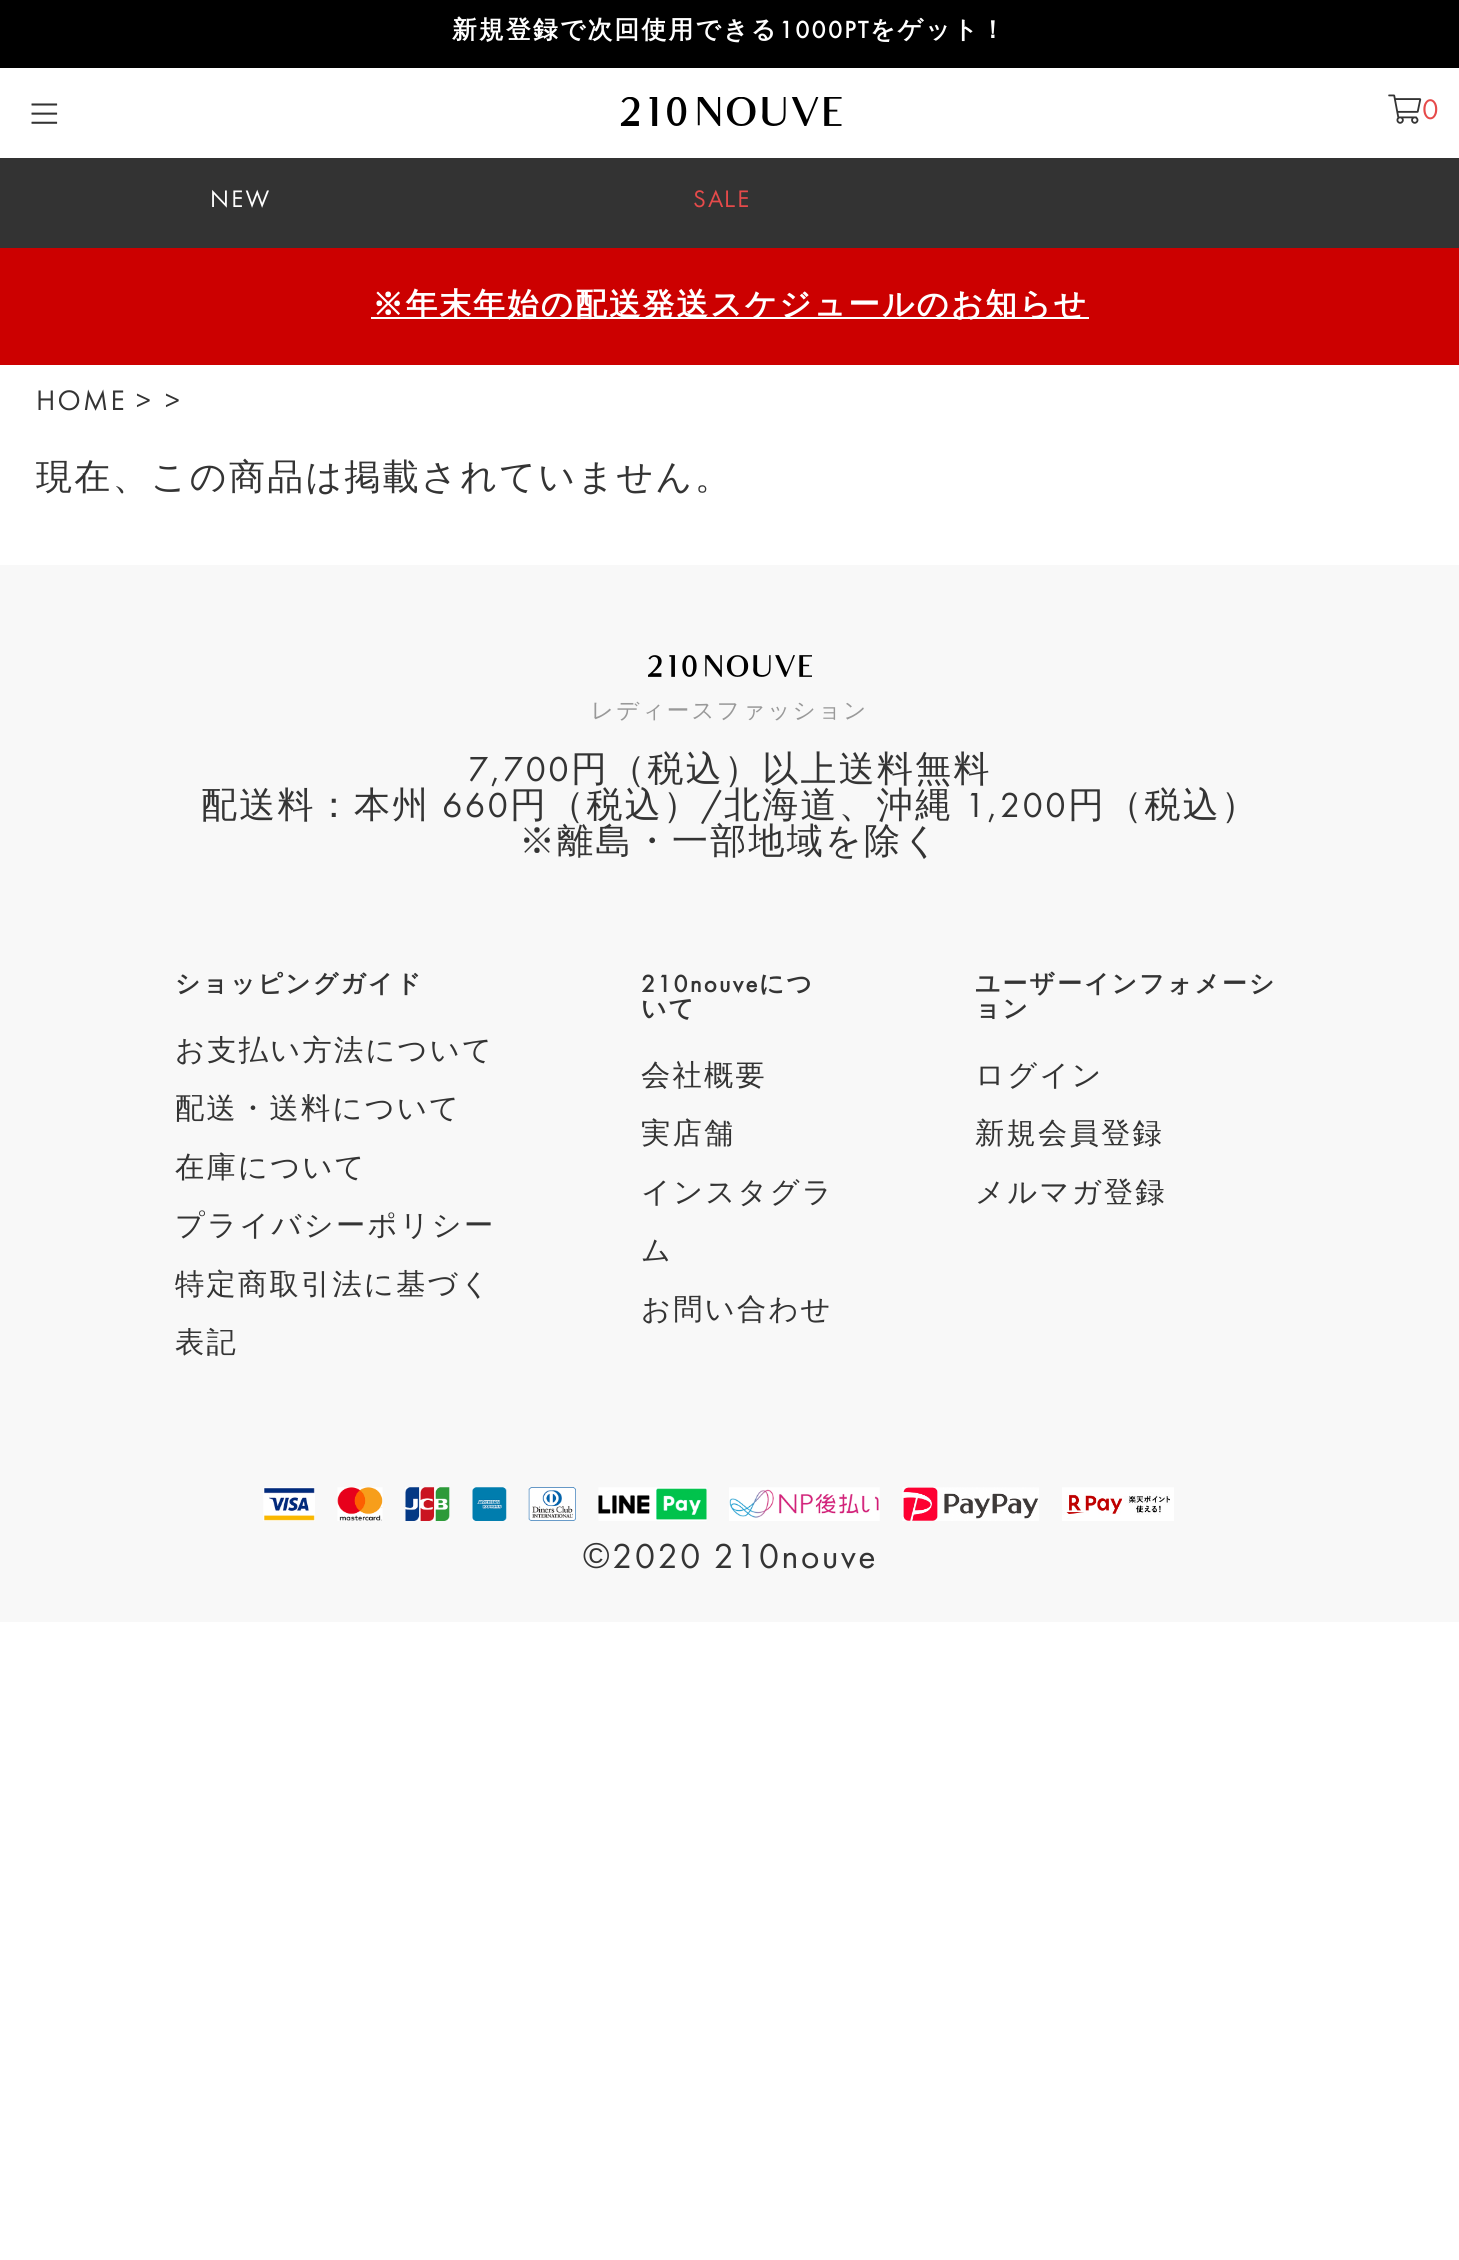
import math
import cairo

surface = cairo.ImageSurface(cairo.Format.RGB24, 1459, 2260)
ctx = cairo.Context(surface)
options = cairo.FontOptions()
options.set_hint_metrics(cairo.HintMetrics.OFF)
options.set_hint_style(cairo.HintStyle.NONE)
ctx.set_font_options(options)
ctx.set_miter_limit(4)


def ink(r, g, b):
    ctx.set_source_rgb(r / 255, g / 255, b / 255)


def write_spaced(x, y, s, letter, word):
    ctx.move_to(x, y)
    for ch in s:
        ctx.show_text(ch)
        ctx.rel_move_to(letter + word * (ch == ' '), 0)


def block(x, y, w, h, *color):
    ink(*color)
    ctx.rectangle(x, y, w, h)
    ctx.fill()


def paste(path, x, y, w, h):
    ctx.save()
    ctx.set_source_surface(cairo.ImageSurface.create_from_png(path), x, y)
    ctx.rectangle(x, y, w, h)
    ctx.fill()
    ctx.restore()


ink(255, 255, 255)
ctx.paint()
block(0, 0, 1459, 68, 0, 0, 0)
ctx.select_font_face("WenQuanYi Zen Hei", cairo.FontSlant.NORMAL, cairo.FontWeight.BOLD)
ctx.set_font_size(24.75)
ink(255, 255, 255)
write_spaced(452, 38, "新規登録で次回使用できる", 2.25, 0)
ctx.select_font_face("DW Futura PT", cairo.FontSlant.NORMAL, cairo.FontWeight.BOLD)
write_spaced(779, 38, "1000PT", 2.25, 0)
ctx.select_font_face("WenQuanYi Zen Hei", cairo.FontSlant.NORMAL, cairo.FontWeight.BOLD)
write_spaced(870, 38, "をゲット！", 2.25, 0)
paste("pic1.png", 620, 97, 222, 29)
paste("pic2.png", 31, 103, 27, 21)
paste("pic3.png", 1388, 94, 34, 30)
ctx.select_font_face("DW Futura PT")
ctx.set_font_size(29.25)
ink(230, 74, 74)
write_spaced(1422, 119, "0", 2.25, 0)
block(0, 158, 1459, 90, 51, 51, 51)
ctx.set_font_size(24.75)
ink(255, 255, 255)
write_spaced(210, 207, "NEW", 2.25, 0)
ink(230, 74, 74)
write_spaced(693, 207, "SALE", 2.25, 0)
block(0, 248, 1459, 117, 204, 0, 0)
block(371, 317, 718, 2, 255, 255, 255)
ctx.select_font_face("WenQuanYi Zen Hei", cairo.FontSlant.NORMAL, cairo.FontWeight.BOLD)
ctx.set_font_size(31.5)
write_spaced(372, 315, "※年末年始の配送発送スケジュールのお知らせ", 2.25, 0)
ctx.select_font_face("DW Futura PT")
ctx.set_font_size(29.25)
ink(52, 52, 52)
write_spaced(36, 410, "HOME >", 2.25, 0)
write_spaced(165, 410, ">", 2.25, 0)
ctx.select_font_face("WenQuanYi Zen Hei Medium")
ctx.set_font_size(36)
write_spaced(36, 489, "現在、この商品は掲載されていません。", 2.25, 0)
block(0, 565, 1459, 1057, 248, 248, 248)
paste("pic4.png", 648, 655, 164, 22)
ctx.set_font_size(22.5)
ink(153, 153, 153)
write_spaced(591, 718, "レディースファッション", 2.25, 0)
ctx.select_font_face("DW Futura PT")
ctx.set_font_size(36)
ink(52, 52, 52)
write_spaced(468, 781, "7,700", 2.25, 0)
ctx.select_font_face("WenQuanYi Zen Hei Medium")
write_spaced(571, 781, "円（税込）以上送料無料", 2.25, 0)
write_spaced(201, 817, "配送料：本州", 2.25, 0)
ctx.select_font_face("DW Futura PT")
write_spaced(442, 817, "660", 2.25, 0)
ctx.select_font_face("WenQuanYi Zen Hei Medium")
write_spaced(510, 817, "円（税込）", 2.25, 0)
ctx.select_font_face("DW Futura PT")
write_spaced(701, 817, "/", 2.25, 0)
ctx.select_font_face("WenQuanYi Zen Hei Medium")
write_spaced(724, 817, "北海道、沖縄", 2.25, 0)
ctx.select_font_face("DW Futura PT")
write_spaced(965, 817, "1,200", 2.25, 0)
ctx.select_font_face("WenQuanYi Zen Hei Medium")
write_spaced(1068, 817, "円（税込）", 2.25, 0)
write_spaced(519, 853, "※離島・一部地域を除く", 2.25, 0)
ctx.select_font_face("WenQuanYi Zen Hei", cairo.FontSlant.NORMAL, cairo.FontWeight.BOLD)
ctx.set_font_size(24.75)
write_spaced(175, 992, "ショッピングガイド", 2.25, 0)
ctx.select_font_face("WenQuanYi Zen Hei Medium")
ctx.set_font_size(29.25)
write_spaced(175, 1060, "お支払い方法について", 2.25, 0)
write_spaced(175, 1118, "配送・送料について", 2.25, 0)
write_spaced(175, 1177, "在庫について", 2.25, 0)
write_spaced(175, 1235, "プライバシーポリシー", 2.25, 0)
write_spaced(175, 1294, "特定商取引法に基づく", 2.25, 0)
write_spaced(175, 1352, "表記", 2.25, 0)
ctx.select_font_face("DW Futura PT", cairo.FontSlant.NORMAL, cairo.FontWeight.BOLD)
ctx.set_font_size(24.75)
write_spaced(641, 992, "210nouve", 2.25, 0)
ctx.select_font_face("WenQuanYi Zen Hei", cairo.FontSlant.NORMAL, cairo.FontWeight.BOLD)
write_spaced(759, 992, "につ", 2.25, 0)
write_spaced(641, 1017, "いて", 2.25, 0)
ctx.select_font_face("WenQuanYi Zen Hei Medium")
ctx.set_font_size(29.25)
write_spaced(641, 1085, "会社概要", 2.25, 0)
write_spaced(641, 1143, "実店舗", 2.25, 0)
write_spaced(641, 1202, "インスタグラ", 2.25, 0)
write_spaced(641, 1260, "ム", 2.25, 0)
write_spaced(641, 1319, "お問い合わせ", 2.25, 0)
ctx.select_font_face("WenQuanYi Zen Hei", cairo.FontSlant.NORMAL, cairo.FontWeight.BOLD)
ctx.set_font_size(24.75)
write_spaced(975, 992, "ユーザーインフォメーシ", 2.25, 0)
write_spaced(975, 1017, "ョン", 2.25, 0)
ctx.select_font_face("WenQuanYi Zen Hei Medium")
ctx.set_font_size(29.25)
write_spaced(975, 1085, "ログイン", 2.25, 0)
write_spaced(975, 1143, "新規会員登録", 2.25, 0)
write_spaced(975, 1202, "メルマガ登録", 2.25, 0)
paste("pic5.png", 263, 1487, 52, 34)
paste("pic6.png", 337, 1487, 46, 34)
paste("pic7.png", 405, 1487, 45, 34)
paste("pic8.png", 472, 1487, 35, 34)
paste("pic9.png", 528, 1487, 48, 34)
paste("pic10.png", 598, 1487, 109, 34)
paste("pic11.png", 729, 1487, 151, 34)
paste("pic12.png", 902, 1487, 137, 34)
paste("pic13.png", 1062, 1487, 112, 34)
ctx.select_font_face("Liberation Sans")
ctx.set_font_size(36)
write_spaced(583, 1568, "©", 2.25, 0)
ctx.select_font_face("DW Futura PT")
write_spaced(612, 1568, "2020 210nouve", 2.25, 0)
surface.write_to_png("screenshot.png")
